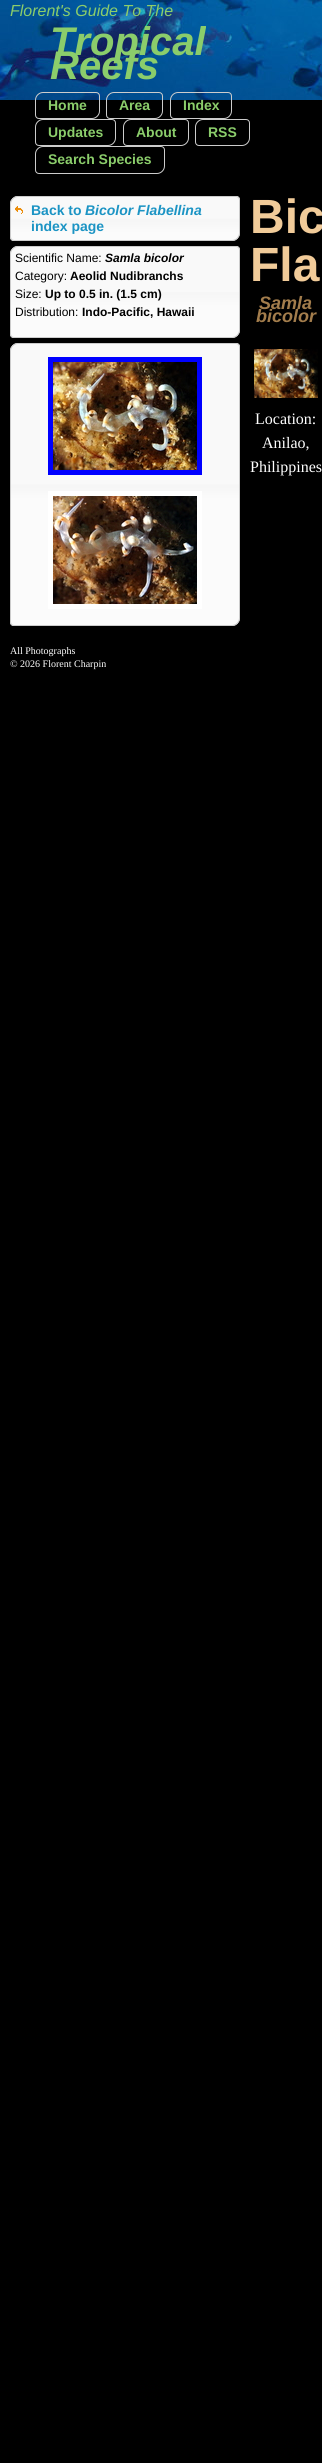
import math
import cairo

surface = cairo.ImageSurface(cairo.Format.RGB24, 322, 2463)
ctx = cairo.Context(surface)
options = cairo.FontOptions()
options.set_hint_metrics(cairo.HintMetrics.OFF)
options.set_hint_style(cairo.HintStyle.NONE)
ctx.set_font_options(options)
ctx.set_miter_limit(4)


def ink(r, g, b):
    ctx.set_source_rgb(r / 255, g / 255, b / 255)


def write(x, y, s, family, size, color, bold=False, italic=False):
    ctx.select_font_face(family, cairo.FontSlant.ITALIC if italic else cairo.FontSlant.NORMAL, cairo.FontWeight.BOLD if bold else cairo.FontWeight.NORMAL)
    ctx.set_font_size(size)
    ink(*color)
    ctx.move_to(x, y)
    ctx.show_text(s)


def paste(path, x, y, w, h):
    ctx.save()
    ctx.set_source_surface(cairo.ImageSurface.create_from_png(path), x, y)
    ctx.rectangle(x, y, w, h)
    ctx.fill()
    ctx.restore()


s1 = dict(family="Liberation Sans", size=16, color=(139, 205, 107), italic=True)
s2 = dict(family="Liberation Sans", size=40, color=(139, 205, 107), bold=True, italic=True)
s3 = dict(family="Liberation Sans", size=14, color=(139, 205, 107), bold=True)
s4 = dict(family="Liberation Sans", size=14, color=(28, 148, 196), bold=True)
s5 = dict(family="Liberation Sans", size=14, color=(28, 148, 196), bold=True, italic=True)
s6 = dict(family="Liberation Sans", size=12, color=(0, 0, 0))
s7 = dict(family="Liberation Sans", size=12, color=(0, 0, 0), bold=True, italic=True)
s8 = dict(family="Liberation Sans", size=12, color=(0, 0, 0), bold=True)
s9 = dict(family="Liberation Serif", size=10, color=(255, 255, 255))
s10 = dict(family="Liberation Sans", size=48, color=(241, 203, 153), bold=True)
s11 = dict(family="Liberation Sans", size=18, color=(163, 125, 76), bold=True, italic=True)
s12 = dict(family="Liberation Serif", size=16, color=(255, 255, 255))

ink(0, 0, 0)
ctx.paint()
paste("pic1.png", 0, 0, 322, 100)
write(10, 16, "Florent's Guide To The", **s1)
write(50, 55, "Tropical", **s2)
write(50, 79, "Reefs", **s2)
ctx.new_path()
ctx.move_to(43, 92.5)
ctx.line_to(96, 92.5)
ctx.curve_to(98, 92.5, 99.5, 94, 99.5, 96)
ctx.line_to(99.5, 111)
ctx.curve_to(99.5, 115, 96, 118.5, 92, 118.5)
ctx.line_to(39, 118.5)
ctx.curve_to(37, 118.5, 35.5, 117, 35.5, 115)
ctx.line_to(35.5, 100)
ctx.curve_to(35.5, 96, 39, 92.5, 43, 92.5)
ctx.close_path()
ink(204, 204, 204)
ctx.set_line_width(1)
ctx.stroke()
write(48, 110, "Home", **s3)
ctx.new_path()
ctx.move_to(114, 92.5)
ctx.line_to(159, 92.5)
ctx.curve_to(161, 92.5, 162.5, 94, 162.5, 96)
ctx.line_to(162.5, 111)
ctx.curve_to(162.5, 115, 159, 118.5, 155, 118.5)
ctx.line_to(110, 118.5)
ctx.curve_to(108, 118.5, 106.5, 117, 106.5, 115)
ctx.line_to(106.5, 100)
ctx.curve_to(106.5, 96, 110, 92.5, 114, 92.5)
ctx.close_path()
ink(204, 204, 204)
ctx.stroke()
write(119, 110, "Area", **s3)
ctx.new_path()
ctx.move_to(178, 92.5)
ctx.line_to(228, 92.5)
ctx.curve_to(230, 92.5, 231.5, 94, 231.5, 96)
ctx.line_to(231.5, 111)
ctx.curve_to(231.5, 115, 228, 118.5, 224, 118.5)
ctx.line_to(174, 118.5)
ctx.curve_to(172, 118.5, 170.5, 117, 170.5, 115)
ctx.line_to(170.5, 100)
ctx.curve_to(170.5, 96, 174, 92.5, 178, 92.5)
ctx.close_path()
ink(204, 204, 204)
ctx.stroke()
write(183, 110, "Index", **s3)
ctx.new_path()
ctx.move_to(43, 119.5)
ctx.line_to(112, 119.5)
ctx.curve_to(114, 119.5, 115.5, 121, 115.5, 123)
ctx.line_to(115.5, 138)
ctx.curve_to(115.5, 142, 112, 145.5, 108, 145.5)
ctx.line_to(39, 145.5)
ctx.curve_to(37, 145.5, 35.5, 144, 35.5, 142)
ctx.line_to(35.5, 127)
ctx.curve_to(35.5, 123, 39, 119.5, 43, 119.5)
ctx.close_path()
ink(204, 204, 204)
ctx.stroke()
write(48, 137, "Updates", **s3)
ctx.new_path()
ctx.move_to(131, 119.5)
ctx.line_to(185, 119.5)
ctx.curve_to(187, 119.5, 188.5, 121, 188.5, 123)
ctx.line_to(188.5, 138)
ctx.curve_to(188.5, 142, 185, 145.5, 181, 145.5)
ctx.line_to(127, 145.5)
ctx.curve_to(125, 145.5, 123.5, 144, 123.5, 142)
ctx.line_to(123.5, 127)
ctx.curve_to(123.5, 123, 127, 119.5, 131, 119.5)
ctx.close_path()
ink(204, 204, 204)
ctx.stroke()
write(136, 137, "About", **s3)
ctx.new_path()
ctx.move_to(203, 119.5)
ctx.line_to(246, 119.5)
ctx.curve_to(248, 119.5, 249.5, 121, 249.5, 123)
ctx.line_to(249.5, 138)
ctx.curve_to(249.5, 142, 246, 145.5, 242, 145.5)
ctx.line_to(199, 145.5)
ctx.curve_to(197, 145.5, 195.5, 144, 195.5, 142)
ctx.line_to(195.5, 127)
ctx.curve_to(195.5, 123, 199, 119.5, 203, 119.5)
ctx.close_path()
ink(204, 204, 204)
ctx.stroke()
write(208, 137, "RSS", **s3)
ctx.new_path()
ctx.move_to(43, 146.5)
ctx.line_to(161, 146.5)
ctx.curve_to(163, 146.5, 164.5, 148, 164.5, 150)
ctx.line_to(164.5, 166)
ctx.curve_to(164.5, 170, 161, 173.5, 157, 173.5)
ctx.line_to(39, 173.5)
ctx.curve_to(37, 173.5, 35.5, 172, 35.5, 170)
ctx.line_to(35.5, 154)
ctx.curve_to(35.5, 150, 39, 146.5, 43, 146.5)
ctx.close_path()
ink(204, 204, 204)
ctx.stroke()
write(48, 164, "Search Species", **s3)
paste("pic2.png", 10, 196, 230, 45)
ctx.new_path()
ctx.move_to(18, 196.5)
ctx.line_to(236, 196.5)
ctx.curve_to(238, 196.5, 239.5, 198, 239.5, 200)
ctx.line_to(239.5, 233)
ctx.curve_to(239.5, 237, 236, 240.5, 232, 240.5)
ctx.line_to(14, 240.5)
ctx.curve_to(12, 240.5, 10.5, 239, 10.5, 237)
ctx.line_to(10.5, 204)
ctx.curve_to(10.5, 200, 14, 196.5, 18, 196.5)
ctx.close_path()
ink(204, 204, 204)
ctx.stroke()
paste("pic3.png", 15, 206, 8, 8)
write(31, 215, "Back to", **s4)
write(85, 215, "Bicolor Flabellina", **s5)
write(31, 231, "index page", **s4)
paste("pic4.png", 10, 246, 230, 92)
ctx.new_path()
ctx.move_to(18, 246.5)
ctx.line_to(236, 246.5)
ctx.curve_to(238, 246.5, 239.5, 248, 239.5, 250)
ctx.line_to(239.5, 330)
ctx.curve_to(239.5, 334, 236, 337.5, 232, 337.5)
ctx.line_to(14, 337.5)
ctx.curve_to(12, 337.5, 10.5, 336, 10.5, 334)
ctx.line_to(10.5, 254)
ctx.curve_to(10.5, 250, 14, 246.5, 18, 246.5)
ctx.close_path()
ink(204, 204, 204)
ctx.stroke()
write(15, 262, "Scientific Name:", **s6)
write(105, 262, "Samla bicolor", **s7)
write(15, 280, "Category:", **s6)
write(70, 280, "Aeolid Nudibranchs", **s8)
write(15, 298, "Size:", **s6)
write(45, 298, "Up to 0.5 in. (1.5 cm)", **s8)
write(15, 316, "Distribution:", **s6)
write(82, 316, "Indo-Pacific, Hawaii", **s8)
paste("pic5.png", 10, 343, 230, 283)
ctx.new_path()
ctx.move_to(18, 343.5)
ctx.line_to(236, 343.5)
ctx.curve_to(238, 343.5, 239.5, 345, 239.5, 347)
ctx.line_to(239.5, 618)
ctx.curve_to(239.5, 622, 236, 625.5, 232, 625.5)
ctx.line_to(14, 625.5)
ctx.curve_to(12, 625.5, 10.5, 624, 10.5, 622)
ctx.line_to(10.5, 351)
ctx.curve_to(10.5, 347, 14, 343.5, 18, 343.5)
ctx.close_path()
ink(204, 204, 204)
ctx.stroke()
ctx.rectangle(50.5, 359.5, 149, 113)
ink(0, 0, 255)
ctx.set_line_width(5)
ctx.stroke()
paste("pic6.png", 53, 362, 144, 108)
ctx.rectangle(50.5, 493.5, 149, 113)
ink(255, 255, 255)
ctx.stroke()
paste("pic7.png", 53, 496, 144, 108)
write(10, 654, "All Photographs", **s9)
write(10, 667, "© 2026 Florent Charpin", **s9)
write(250, 233, "Bic", **s10)
write(250, 281, "Fla", **s10)
write(259, 309, "Samla", **s11)
write(256, 322, "bicolor", **s11)
paste("pic8.png", 254, 349, 64, 49)
write(255, 424, "Location:", **s12)
write(262, 448, "Anilao,", **s12)
write(250, 472, "Philippines", **s12)
surface.write_to_png("screenshot.png")
